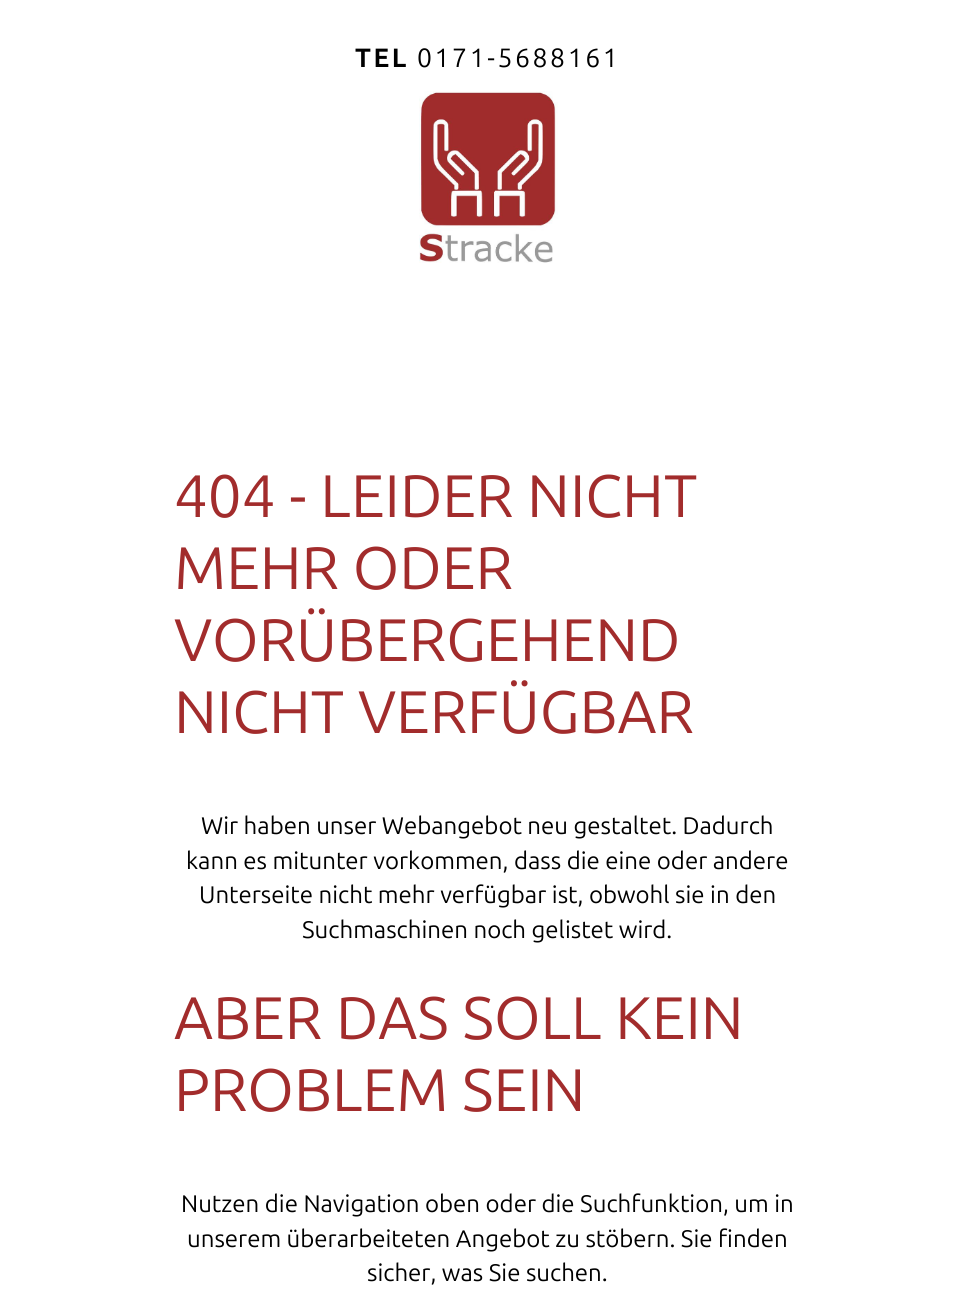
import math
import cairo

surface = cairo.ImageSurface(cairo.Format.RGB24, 974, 1305)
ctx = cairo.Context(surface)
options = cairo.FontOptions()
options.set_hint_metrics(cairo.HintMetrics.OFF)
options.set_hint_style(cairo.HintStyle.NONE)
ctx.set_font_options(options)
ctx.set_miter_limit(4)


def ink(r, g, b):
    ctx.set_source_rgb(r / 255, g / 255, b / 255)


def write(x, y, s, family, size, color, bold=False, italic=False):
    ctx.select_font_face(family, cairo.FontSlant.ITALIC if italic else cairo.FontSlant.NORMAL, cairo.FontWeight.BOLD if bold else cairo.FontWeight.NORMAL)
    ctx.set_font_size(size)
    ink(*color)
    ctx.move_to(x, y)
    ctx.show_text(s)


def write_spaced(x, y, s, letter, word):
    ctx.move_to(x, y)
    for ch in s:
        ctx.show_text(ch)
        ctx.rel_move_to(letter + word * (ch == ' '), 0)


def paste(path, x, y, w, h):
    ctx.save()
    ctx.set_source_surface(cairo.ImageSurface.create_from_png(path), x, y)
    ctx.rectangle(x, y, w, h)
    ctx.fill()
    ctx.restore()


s1 = dict(family="Ubuntu", size=60, color=(162, 44, 44))
s2 = dict(family="Ubuntu", size=24, color=(0, 0, 0))

ink(255, 255, 255)
ctx.paint()
ctx.select_font_face("Ubuntu", cairo.FontSlant.NORMAL, cairo.FontWeight.BOLD)
ctx.set_font_size(26.5)
ink(0, 0, 0)
write_spaced(355, 67, "TEL", 2.6, 0)
ctx.select_font_face("Ubuntu")
write_spaced(417, 67, "0171-5688161", 2.6, 0)
paste("pic1.png", 419, 91, 139, 172)
write(174, 517, "404 - LEIDER NICHT", **s1)
write(174, 589, "MEHR ODER", **s1)
write(174, 661, "VORÜBERGEHEND", **s1)
write(174, 733, "NICHT VERFÜGBAR", **s1)
write(201, 834, "Wir haben unser Webangebot neu gestaltet. Dadurch", **s2)
write(186, 869, "kann es mitunter vorkommen, dass die eine oder andere", **s2)
write(199, 903, "Unterseite nicht mehr verfügbar ist, obwohl sie in den", **s2)
write(302, 938, "Suchmaschinen noch gelistet wird.", **s2)
write(174, 1039, "ABER DAS SOLL KEIN", **s1)
write(174, 1111, "PROBLEM SEIN", **s1)
write(181, 1212, "Nutzen die Navigation oben oder die Suchfunktion, um in", **s2)
write(187, 1247, "unserem überarbeiteten Angebot zu stöbern. Sie finden", **s2)
write(367, 1281, "sicher, was Sie suchen.", **s2)
surface.write_to_png("screenshot.png")
